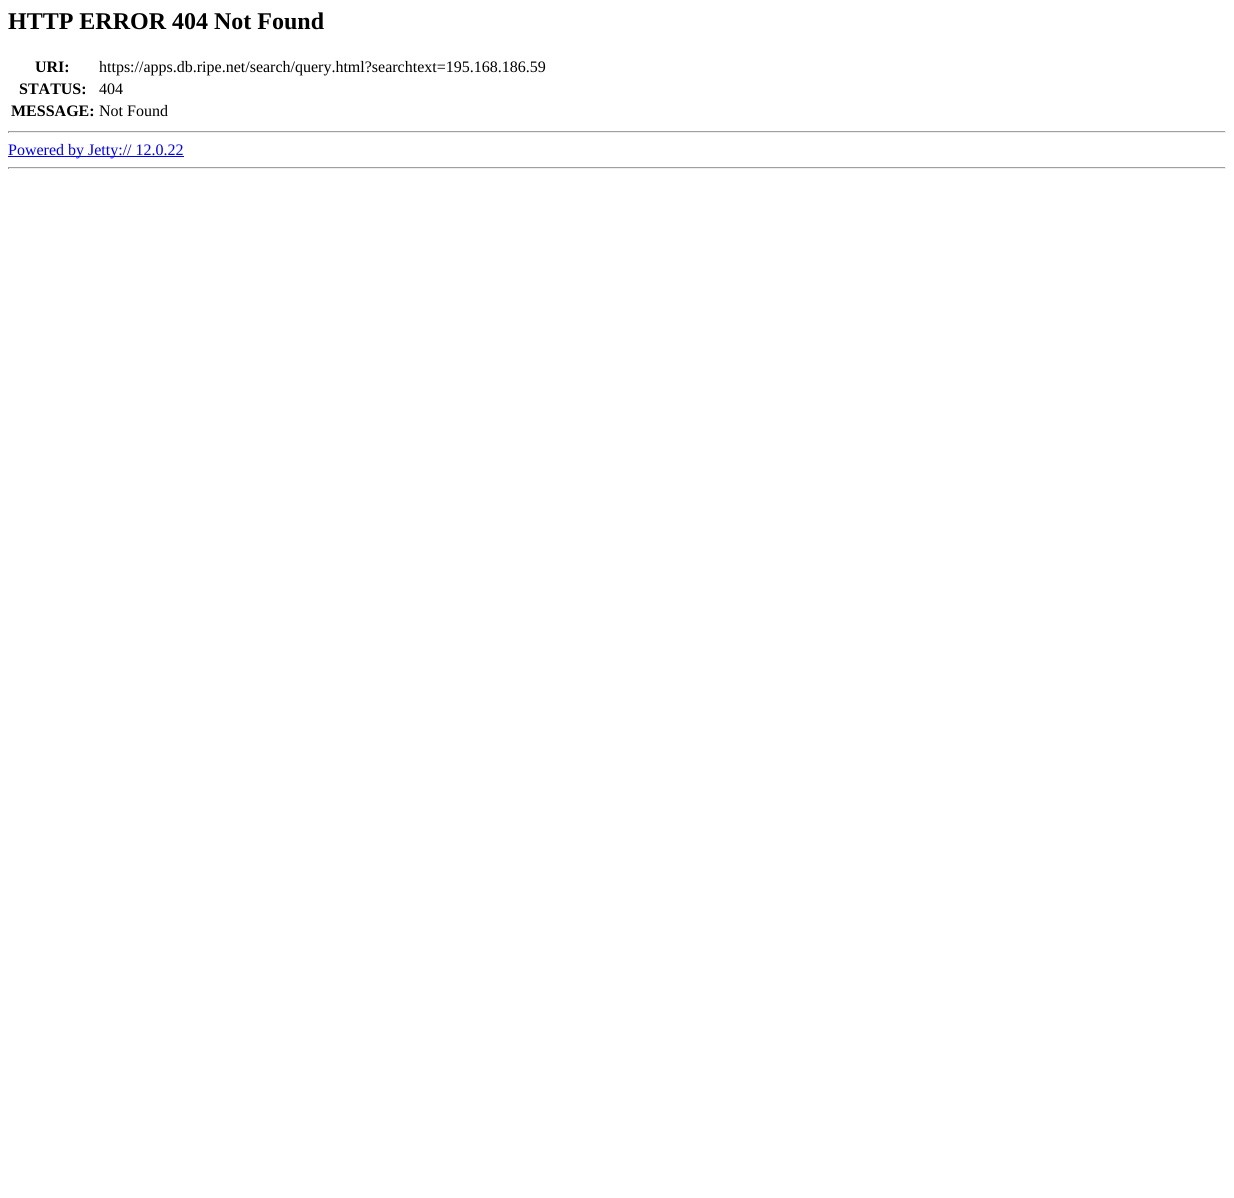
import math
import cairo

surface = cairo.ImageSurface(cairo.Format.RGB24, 1234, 1198)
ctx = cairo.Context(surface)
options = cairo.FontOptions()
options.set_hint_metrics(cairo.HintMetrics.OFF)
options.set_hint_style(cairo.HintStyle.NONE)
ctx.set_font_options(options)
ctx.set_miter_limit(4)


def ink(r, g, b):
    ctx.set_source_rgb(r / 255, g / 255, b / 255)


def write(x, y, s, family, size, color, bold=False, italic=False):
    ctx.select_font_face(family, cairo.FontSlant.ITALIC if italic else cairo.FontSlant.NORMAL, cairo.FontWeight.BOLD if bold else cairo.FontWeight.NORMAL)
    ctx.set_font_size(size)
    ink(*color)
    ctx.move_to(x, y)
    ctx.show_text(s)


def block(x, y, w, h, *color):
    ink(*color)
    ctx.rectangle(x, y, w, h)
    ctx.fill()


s1 = dict(family="Liberation Serif", size=24, color=(0, 0, 0), bold=True)
s2 = dict(family="Liberation Serif", size=16, color=(0, 0, 0), bold=True)
s3 = dict(family="Liberation Serif", size=16, color=(0, 0, 0))
s4 = dict(family="Liberation Serif", size=16, color=(0, 0, 238))

ink(255, 255, 255)
ctx.paint()
write(8, 29, "HTTP ERROR 404 Not Found", **s1)
write(35, 72, "URI:", **s2)
write(99, 72, "https://apps.db.ripe.net/search/query.html?searchtext=195.168.186.59", **s3)
write(19, 94, "STATUS:", **s2)
write(99, 94, "404", **s3)
write(11, 116, "MESSAGE:", **s2)
write(99, 116, "Not Found", **s3)
block(8, 131, 1218, 1, 159, 159, 159)
block(1225, 131, 1, 2, 238, 238, 238)
block(8, 132, 1218, 1, 238, 238, 238)
block(8, 131, 1, 2, 159, 159, 159)
block(8, 156, 176, 1, 0, 0, 238)
write(8, 155, "Powered by Jetty:// 12.0.22", **s4)
block(8, 167, 1218, 1, 159, 159, 159)
block(1225, 167, 1, 2, 238, 238, 238)
block(8, 168, 1218, 1, 238, 238, 238)
block(8, 167, 1, 2, 159, 159, 159)
surface.write_to_png("screenshot.png")
